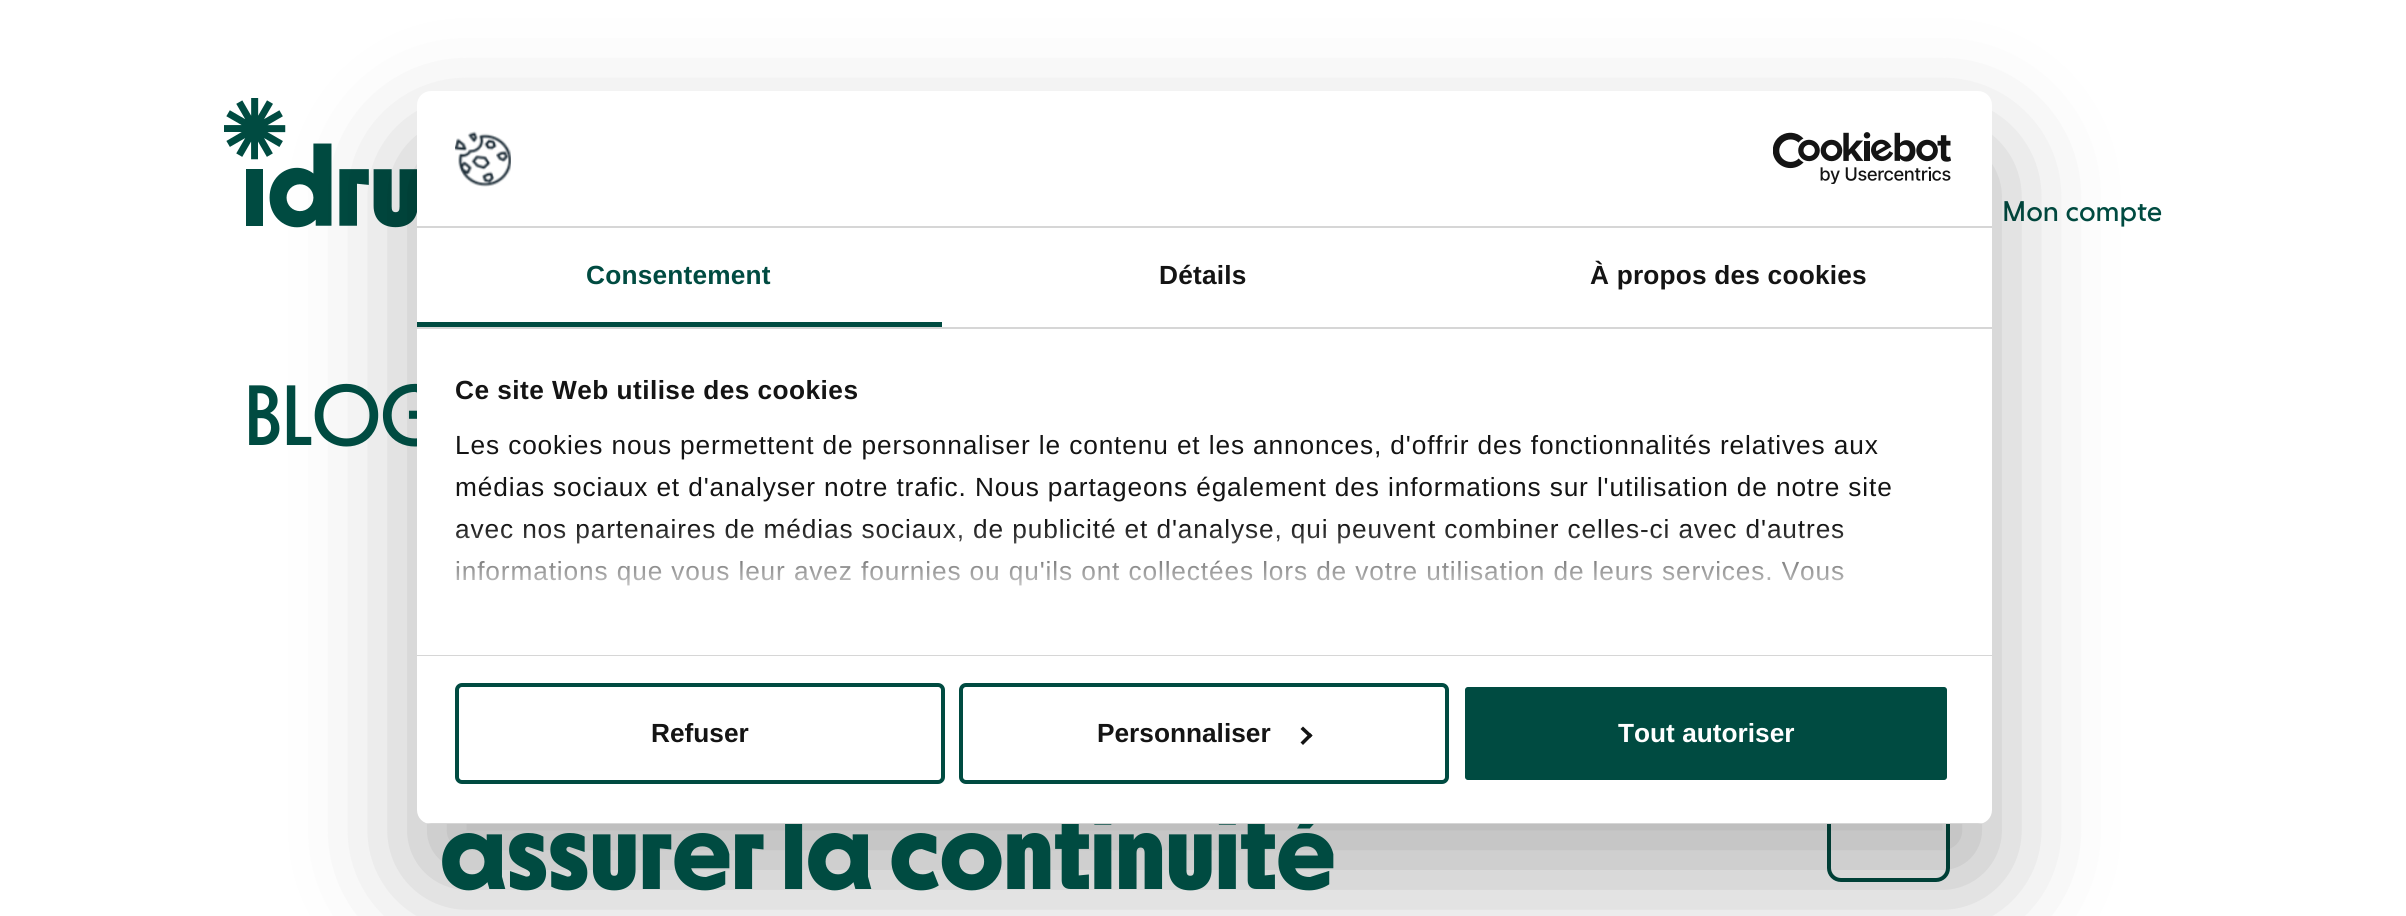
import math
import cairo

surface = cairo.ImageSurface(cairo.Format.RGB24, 2406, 916)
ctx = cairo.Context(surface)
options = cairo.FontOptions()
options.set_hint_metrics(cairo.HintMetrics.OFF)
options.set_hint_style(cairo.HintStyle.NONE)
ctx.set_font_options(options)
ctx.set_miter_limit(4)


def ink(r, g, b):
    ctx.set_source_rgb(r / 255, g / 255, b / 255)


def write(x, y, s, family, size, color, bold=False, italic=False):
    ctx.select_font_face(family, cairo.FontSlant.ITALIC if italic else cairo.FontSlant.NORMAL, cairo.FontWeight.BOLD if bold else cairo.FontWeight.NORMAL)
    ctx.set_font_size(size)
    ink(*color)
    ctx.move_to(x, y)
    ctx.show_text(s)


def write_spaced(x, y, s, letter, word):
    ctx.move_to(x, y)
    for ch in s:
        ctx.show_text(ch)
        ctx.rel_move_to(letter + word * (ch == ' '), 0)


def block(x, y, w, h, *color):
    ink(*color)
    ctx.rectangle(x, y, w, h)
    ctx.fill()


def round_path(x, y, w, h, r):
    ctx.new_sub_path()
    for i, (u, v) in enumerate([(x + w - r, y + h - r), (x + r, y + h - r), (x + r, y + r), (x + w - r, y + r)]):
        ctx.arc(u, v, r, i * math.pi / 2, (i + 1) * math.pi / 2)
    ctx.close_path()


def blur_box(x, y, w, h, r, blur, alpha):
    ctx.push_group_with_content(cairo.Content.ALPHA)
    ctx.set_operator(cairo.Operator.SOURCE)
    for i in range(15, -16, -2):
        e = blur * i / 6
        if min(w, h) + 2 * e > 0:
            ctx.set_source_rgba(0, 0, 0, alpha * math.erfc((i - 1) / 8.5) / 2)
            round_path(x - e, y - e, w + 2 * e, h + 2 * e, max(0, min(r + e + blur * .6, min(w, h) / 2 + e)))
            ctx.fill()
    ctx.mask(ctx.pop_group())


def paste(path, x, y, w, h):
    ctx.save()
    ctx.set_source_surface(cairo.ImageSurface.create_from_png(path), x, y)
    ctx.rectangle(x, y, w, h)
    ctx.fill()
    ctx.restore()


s1 = dict(family="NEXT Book", size=28, color=(0, 75, 65))
s2 = dict(family="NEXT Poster", size=84, color=(0, 75, 65))
s3 = dict(family="NEXT Poster", size=112, color=(0, 75, 65), bold=True)
s4 = dict(family="Liberation Sans", size=26.25, color=(20, 20, 20), bold=True)
s5 = dict(family="Liberation Sans", size=26.25, color=(255, 255, 255), bold=True)

ink(255, 255, 255)
ctx.paint()
paste("pic1.png", 224, 98, 193, 130)
write(2002, 221, "Mon compte", **s1)
round_path(1829, 700, 119, 180, 12)
ctx.set_line_width(4)
ctx.stroke()
ink(0, 0, 0)
blur_box(417, 147, 1575, 733, 14, 59.5, 0.3)
write(244, 445, "BLOG", **s2)
write(440, 889, "assurer la continuité", **s3)
ink(255, 255, 255)
round_path(417, 91, 1575, 733, 14)
ctx.fill()
block(417, 226, 1575, 2, 214, 214, 214)
paste("pic2.png", 455, 131, 56, 56)
paste("pic3.png", 1773, 132, 178, 52)
block(417, 327, 1575, 2, 214, 214, 214)
block(417, 322, 525, 5, 0, 75, 65)
ctx.select_font_face("Liberation Sans", cairo.FontSlant.NORMAL, cairo.FontWeight.BOLD)
ctx.set_font_size(26.25)
write_spaced(586, 284, "Consentement", 0.2, 0)
ink(20, 20, 20)
write_spaced(1159, 284, "Détails", 0.2, 0)
write_spaced(1590, 284, "À propos des cookies", 0.2, 0)
block(417, 655, 1575, 1, 214, 214, 214)
ink(20, 20, 20)
write_spaced(455, 399, "Ce site Web utilise des cookies", 0.45, 0)
ctx.select_font_face("Liberation Sans")
write_spaced(455, 454, "Les cookies nous permettent de personnaliser le contenu et les annonces, d'offrir des fonctionnalités relatives aux", 0.88, 0)
write_spaced(455, 496, "médias sociaux et d'analyser notre trafic. Nous partageons également des informations sur l'utilisation de notre site", 0.88, 0)
write_spaced(455, 538, "avec nos partenaires de médias sociaux, de publicité et d'analyse, qui peuvent combiner celles-ci avec d'autres", 0.88, 0)
write_spaced(455, 580, "informations que vous leur avez fournies ou qu'ils ont collectées lors de votre utilisation de leurs services. Vous", 0.88, 0)
gradient = cairo.LinearGradient(1186, 655, 1186, 524)
gradient.add_color_stop_rgba(0, 1, 1, 1, 1)
gradient.add_color_stop_rgba(0.5, 1, 1, 1, 0.8)
gradient.add_color_stop_rgba(1, 1, 1, 1, 0)
ctx.set_source(gradient)
ctx.rectangle(456, 526, 1387, 60)
ctx.fill()
ctx.save()
round_path(417, 91, 1575, 733, 14)
ctx.clip()
block(426, 823, 1557, 1, 214, 214, 214)
ctx.restore()
round_path(457, 685, 486, 97, 5)
ink(0, 75, 65)
ctx.stroke()
write(651, 742, "Refuser", **s4)
round_path(961, 685, 486, 97, 5)
ink(0, 75, 65)
ctx.stroke()
write(1097, 742, "Personnaliser", **s4)
ctx.new_path()
ctx.move_to(1303, 726.5)
ctx.line_to(1312.5, 735.5)
ctx.line_to(1310, 738)
ctx.line_to(1300.5, 729)
ctx.close_path()
ctx.fill()
ctx.new_path()
ctx.move_to(1310, 733)
ctx.line_to(1312.5, 735.5)
ctx.line_to(1303, 745)
ctx.line_to(1300.5, 742.5)
ctx.close_path()
ctx.fill()
ink(0, 75, 65)
round_path(1463, 685, 486, 97, 5)
ctx.fill_preserve()
ink(255, 255, 255)
ctx.stroke()
write(1618, 742, "Tout autoriser", **s5)
surface.write_to_png("screenshot.png")
